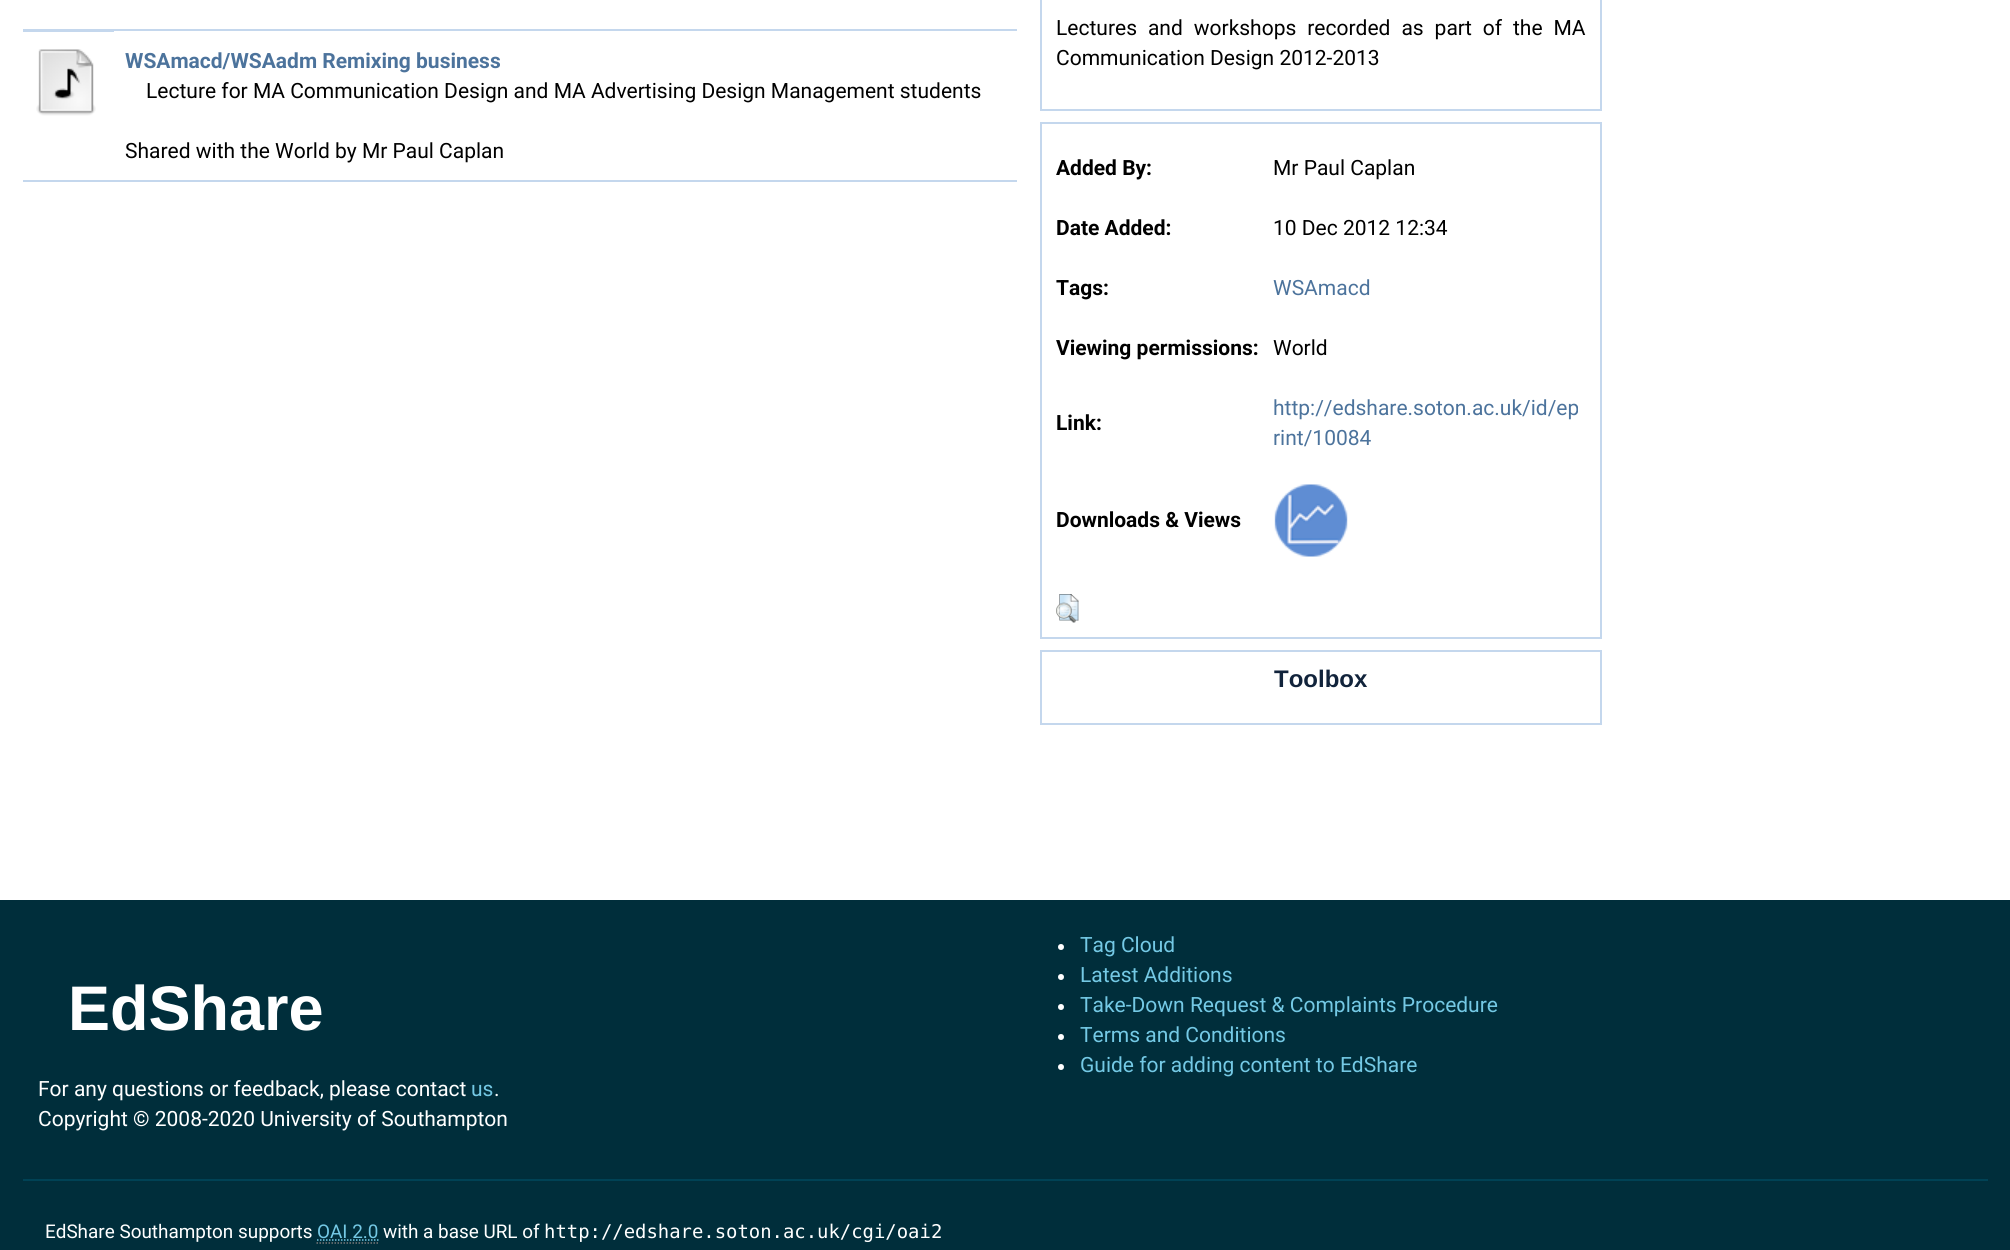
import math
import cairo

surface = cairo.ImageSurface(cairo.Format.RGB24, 2010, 1250)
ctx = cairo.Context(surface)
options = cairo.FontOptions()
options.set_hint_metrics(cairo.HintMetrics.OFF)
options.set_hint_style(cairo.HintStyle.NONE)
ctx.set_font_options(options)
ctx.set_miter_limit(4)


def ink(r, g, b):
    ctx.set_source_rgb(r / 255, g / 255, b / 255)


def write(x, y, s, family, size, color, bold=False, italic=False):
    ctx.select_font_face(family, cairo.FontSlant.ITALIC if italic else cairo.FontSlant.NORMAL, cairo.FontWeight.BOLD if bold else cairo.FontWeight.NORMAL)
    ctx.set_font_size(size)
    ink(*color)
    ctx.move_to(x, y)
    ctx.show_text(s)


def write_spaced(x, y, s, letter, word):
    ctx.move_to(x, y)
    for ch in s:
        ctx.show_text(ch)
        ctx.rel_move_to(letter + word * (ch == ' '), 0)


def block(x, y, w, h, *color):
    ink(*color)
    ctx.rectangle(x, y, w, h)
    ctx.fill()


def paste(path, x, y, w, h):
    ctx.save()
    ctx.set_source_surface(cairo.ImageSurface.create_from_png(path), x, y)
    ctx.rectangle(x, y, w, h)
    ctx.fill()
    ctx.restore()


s1 = dict(family="Roboto", size=21, color=(76, 115, 156), bold=True)
s2 = dict(family="Roboto", size=21, color=(0, 0, 0))
s3 = dict(family="Roboto", size=21, color=(0, 0, 0), bold=True)
s4 = dict(family="Roboto", size=21, color=(76, 115, 156))
s5 = dict(family="Liberation Sans", size=24, color=(17, 35, 59), bold=True)
s6 = dict(family="Liberation Sans", size=63, color=(255, 255, 255), bold=True)
s7 = dict(family="Roboto", size=21, color=(255, 255, 255))
s8 = dict(family="Roboto", size=21, color=(116, 201, 229))
s9 = dict(family="Roboto", size=18.9, color=(255, 255, 255))
s10 = dict(family="Roboto", size=18.9, color=(116, 201, 229))
s11 = dict(family="DejaVu Sans Mono", size=18.9, color=(255, 255, 255))

ink(255, 255, 255)
ctx.paint()
block(23, 180, 994, 2, 196, 215, 237)
block(23, 29, 994, 2, 196, 215, 237)
block(23, 31, 91, 1, 196, 215, 237)
paste("pic1.png", 36, 49, 60, 67)
write(125, 68, "WSAmacd/WSAadm Remixing business", **s1)
write(146, 98, "Lecture for MA Communication Design and MA Advertising Design Management students", **s2)
write(125, 158, "Shared with the World by Mr Paul Caplan", **s2)
ctx.rectangle(1041, -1, 560, 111)
ink(196, 215, 237)
ctx.stroke()
ink(0, 0, 0)
write_spaced(1056, 35, "Lectures and workshops recorded as part of the MA", 0, 5.75)
write(1056, 65, "Communication Design 2012-2013", **s2)
ctx.rectangle(1041, 123, 560, 515)
ink(196, 215, 237)
ctx.stroke()
write(1056, 175, "Added By:", **s3)
write(1273, 175, "Mr Paul Caplan", **s2)
write(1056, 235, "Date Added:", **s3)
write(1273, 235, "10 Dec 2012 12:34", **s2)
write(1056, 295, "Tags:", **s3)
write(1273, 295, "WSAmacd", **s4)
write(1056, 355, "Viewing permissions:", **s3)
write(1273, 355, "World", **s2)
write(1056, 430, "Link:", **s3)
write(1273, 415, "http://edshare.soton.ac.uk/id/ep", **s4)
write(1273, 445, "rint/10084", **s4)
write(1056, 527, "Downloads & Views", **s3)
paste("pic2.png", 1274, 484, 74, 73)
paste("pic3.png", 1056, 594, 23, 29)
ctx.rectangle(1041, 651, 560, 73)
ink(196, 215, 237)
ctx.stroke()
write(1274, 687, "Toolbox", **s5)
block(0, 900, 2010, 350, 0, 46, 59)
write(68, 1030, "EdShare", **s6)
write(38, 1096, "For any questions or feedback, please contact", **s7)
write(471, 1096, "us", **s8)
write(494, 1096, ".", **s7)
write(38, 1126, "Copyright © 2008-2020 University of Southampton", **s7)
ctx.new_path()
ctx.arc(1061, 947, 3, 0, 2 * math.pi)
ctx.fill()
write(1080, 952, "Tag Cloud", **s8)
ink(255, 255, 255)
ctx.new_path()
ctx.arc(1061, 977, 3, 0, 2 * math.pi)
ctx.fill()
write(1080, 982, "Latest Additions", **s8)
ink(255, 255, 255)
ctx.new_path()
ctx.arc(1061, 1007, 3, 0, 2 * math.pi)
ctx.fill()
write(1080, 1012, "Take-Down Request & Complaints Procedure", **s8)
ink(255, 255, 255)
ctx.new_path()
ctx.arc(1061, 1037, 3, 0, 2 * math.pi)
ctx.fill()
write(1080, 1042, "Terms and Conditions", **s8)
ink(255, 255, 255)
ctx.new_path()
ctx.arc(1061, 1067, 3, 0, 2 * math.pi)
ctx.fill()
write(1080, 1072, "Guide for adding content to EdShare", **s8)
block(23, 1179, 1965, 2, 0, 66, 85)
write(45, 1238, "EdShare Southampton supports", **s9)
write(317, 1238, "OAI 2.0", **s10)
ctx.new_path()
ctx.move_to(316.5, 1243)
ctx.line_to(378, 1243)
ink(119, 119, 119)
ctx.set_line_width(1.5)
ctx.set_dash([1.5, 1.5])
ctx.stroke()
ctx.new_path()
ctx.move_to(317, 1240)
ctx.line_to(378.5, 1240)
ink(116, 201, 229)
ctx.stroke()
write(383, 1238, "with a base URL of", **s9)
write(544, 1238, "http://edshare.soton.ac.uk/cgi/oai2", **s11)
surface.write_to_png("screenshot.png")
